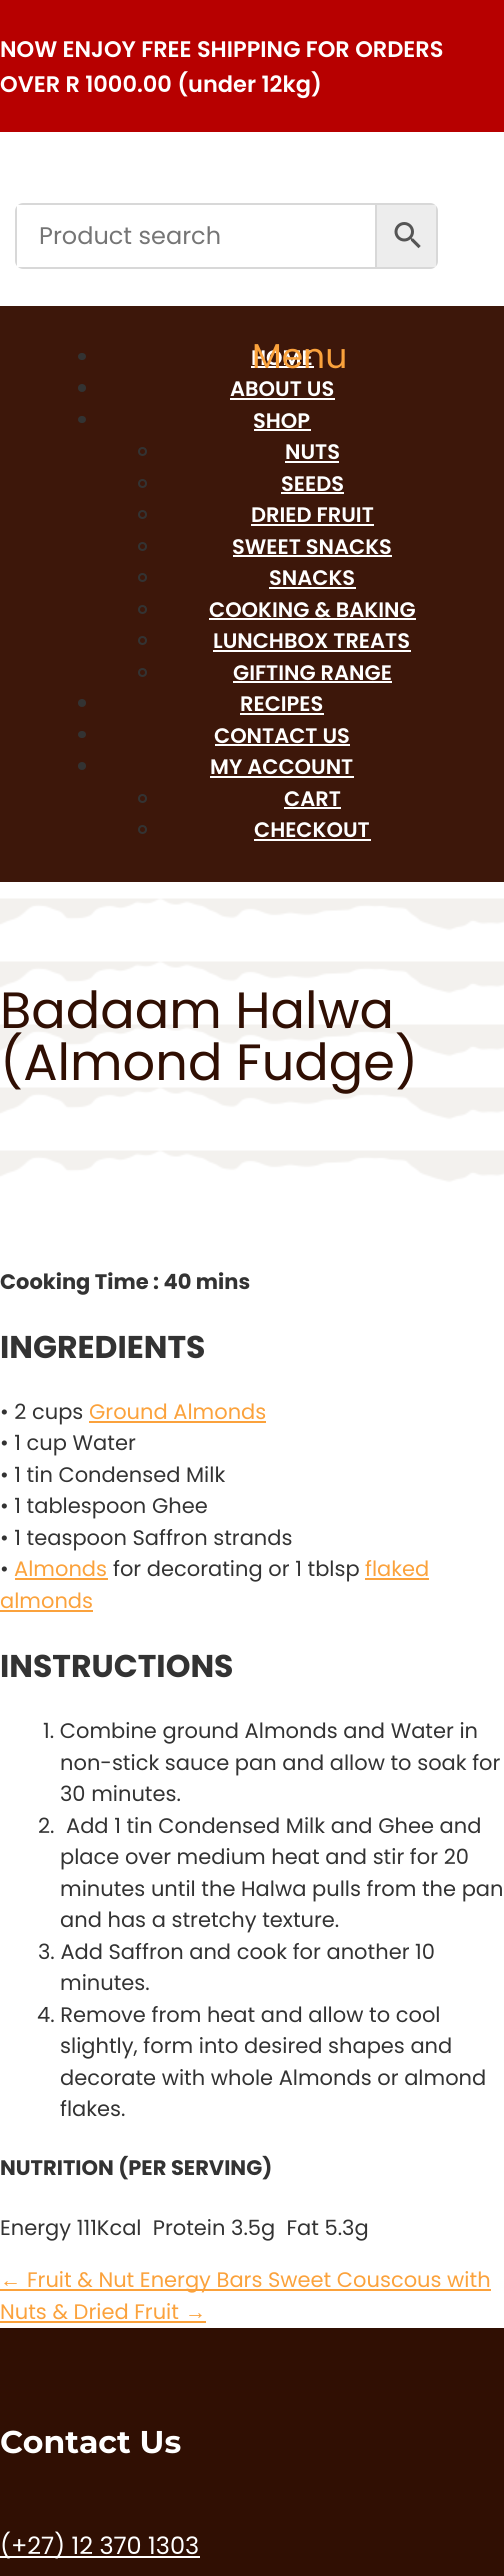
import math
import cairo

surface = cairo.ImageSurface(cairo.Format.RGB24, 504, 2576)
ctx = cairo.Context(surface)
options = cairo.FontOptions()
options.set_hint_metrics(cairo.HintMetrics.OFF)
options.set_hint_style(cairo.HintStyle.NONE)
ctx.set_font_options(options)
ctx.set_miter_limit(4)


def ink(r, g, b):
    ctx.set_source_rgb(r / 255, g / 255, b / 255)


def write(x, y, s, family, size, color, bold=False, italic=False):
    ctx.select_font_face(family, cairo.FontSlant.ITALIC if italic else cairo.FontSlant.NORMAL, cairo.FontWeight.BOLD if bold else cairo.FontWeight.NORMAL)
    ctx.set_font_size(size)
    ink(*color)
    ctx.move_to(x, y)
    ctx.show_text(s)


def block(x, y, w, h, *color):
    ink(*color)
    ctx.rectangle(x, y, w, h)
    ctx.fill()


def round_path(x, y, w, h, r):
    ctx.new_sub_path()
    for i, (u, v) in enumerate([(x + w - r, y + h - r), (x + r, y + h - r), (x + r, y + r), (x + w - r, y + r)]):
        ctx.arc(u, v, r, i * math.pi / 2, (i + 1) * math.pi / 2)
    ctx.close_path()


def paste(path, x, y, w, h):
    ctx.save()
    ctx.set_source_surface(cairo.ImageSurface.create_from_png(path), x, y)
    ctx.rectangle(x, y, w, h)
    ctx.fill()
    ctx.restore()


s1 = dict(family="Poppins SemiBold", size=22.5, color=(255, 255, 255))
s2 = dict(family="Poppins", size=24, color=(117, 117, 117))
s3 = dict(family="Poppins SemiBold", size=21, color=(255, 255, 255))
s4 = dict(family="Poppins", size=34.5, color=(251, 162, 60))
s5 = dict(family="Poppins", size=51, color=(48, 15, 3))
s6 = dict(family="Poppins", size=21, color=(51, 51, 51), bold=True)
s7 = dict(family="Poppins", size=31.5, color=(51, 51, 51), bold=True)
s8 = dict(family="Poppins", size=21, color=(51, 51, 51))
s9 = dict(family="Poppins", size=21, color=(251, 162, 60))
s10 = dict(family="Liberation Sans", size=21, color=(251, 162, 60))
s11 = dict(family="Montserrat Thin", size=31.5, color=(255, 255, 255))
s12 = dict(family="Poppins", size=24, color=(255, 255, 255))

ink(255, 255, 255)
ctx.paint()
block(0, 0, 504, 132, 183, 0, 0)
write(0, 57, "NOW ENJOY FREE SHIPPING FOR ORDERS", **s1)
write(0, 92, "OVER R 1000.00 (under 12kg)", **s1)
ink(237, 237, 237)
ctx.new_path()
ctx.move_to(375, 203)
ctx.line_to(430, 203)
ctx.curve_to(434.5, 203, 438, 206.5, 438, 211)
ctx.line_to(438, 261)
ctx.curve_to(438, 265.5, 434.5, 269, 430, 269)
ctx.line_to(375, 269)
ctx.close_path()
ctx.fill()
ink(216, 216, 216)
ctx.set_fill_rule(cairo.FillRule.EVEN_ODD)
ctx.new_path()
ctx.move_to(375, 203)
ctx.line_to(375, 269)
ctx.line_to(430, 269)
ctx.curve_to(432, 269, 434, 268, 435, 267)
ctx.line_to(377, 267)
ctx.line_to(377, 205)
ctx.line_to(435, 205)
ctx.curve_to(434, 204, 432, 203, 430, 203)
ctx.close_path()
ctx.move_to(438, 211)
ctx.curve_to(438, 209, 437, 207, 436, 206)
ctx.line_to(436, 266)
ctx.curve_to(437, 265, 438, 263, 438, 261)
ctx.close_path()
ctx.fill()
ink(255, 255, 255)
ctx.new_path()
ctx.move_to(23, 203)
ctx.line_to(377, 203)
ctx.line_to(377, 269)
ctx.line_to(23, 269)
ctx.curve_to(18.5, 269, 15, 265.5, 15, 261)
ctx.line_to(15, 211)
ctx.curve_to(15, 206.5, 18.5, 203, 23, 203)
ctx.close_path()
ctx.fill()
ink(216, 216, 216)
ctx.new_path()
ctx.move_to(15, 211)
ctx.line_to(15, 261)
ctx.curve_to(15, 263, 16, 265, 17, 266)
ctx.line_to(17, 206)
ctx.curve_to(16, 207, 15, 209, 15, 211)
ctx.close_path()
ctx.move_to(23, 203)
ctx.curve_to(21, 203, 19, 204, 18, 205)
ctx.line_to(375, 205)
ctx.line_to(375, 267)
ctx.line_to(18, 267)
ctx.curve_to(19, 268, 21, 269, 23, 269)
ctx.line_to(377, 269)
ctx.line_to(377, 203)
ctx.close_path()
ctx.fill()
write(39, 244, "Product search", **s2)
paste("pic1.png", 394, 222, 27, 27)
block(0, 306, 504, 576, 61, 23, 10)
write(251, 365, "HOME", **s3)
block(251, 366, 63, 2, 255, 255, 255)
write(252, 368, "Menu", **s4)
ink(51, 51, 51)
round_path(78, 353, 8, 7, 3.5)
ctx.fill()
ctx.arc(82, 388, 4, 0, 2 * math.pi)
ctx.fill()
write(230, 396, "ABOUT US", **s3)
block(230, 398, 105, 2, 255, 255, 255)
ink(51, 51, 51)
round_path(78, 416, 8, 7, 3.5)
ctx.fill()
write(253, 428, "SHOP", **s3)
block(254, 429, 57, 2, 255, 255, 255)
ctx.new_path()
ctx.arc(142.5, 451.5, 3.5, 0, 2 * math.pi)
ink(51, 51, 51)
ctx.stroke()
write(285, 459, "NUTS", **s3)
block(285, 461, 54, 2, 255, 255, 255)
ctx.new_path()
ctx.arc(142.5, 483.5, 3.5, 0, 2 * math.pi)
ink(51, 51, 51)
ctx.stroke()
write(281, 491, "SEEDS", **s3)
block(281, 492, 63, 2, 255, 255, 255)
ctx.new_path()
ctx.arc(142.5, 514.5, 3.5, 0, 2 * math.pi)
ink(51, 51, 51)
ctx.stroke()
write(251, 522, "DRIED FRUIT", **s3)
block(251, 524, 123, 2, 255, 255, 255)
ctx.new_path()
ctx.arc(142.5, 546.5, 3.5, 0, 2 * math.pi)
ink(51, 51, 51)
ctx.stroke()
write(232, 554, "SWEET SNACKS", **s3)
block(233, 555, 159, 2, 255, 255, 255)
ctx.new_path()
ctx.arc(142.5, 577.5, 3.5, 0, 2 * math.pi)
ink(51, 51, 51)
ctx.stroke()
write(269, 585, "SNACKS", **s3)
block(269, 587, 87, 2, 255, 255, 255)
ctx.new_path()
ctx.arc(142.5, 609.5, 3.5, 0, 2 * math.pi)
ink(51, 51, 51)
ctx.stroke()
write(209, 617, "COOKING & BAKING", **s3)
block(209, 618, 207, 2, 255, 255, 255)
ctx.new_path()
ctx.arc(142.5, 640.5, 3.5, 0, 2 * math.pi)
ink(51, 51, 51)
ctx.stroke()
write(213, 648, "LUNCHBOX TREATS", **s3)
block(213, 650, 198, 2, 255, 255, 255)
ctx.new_path()
ctx.arc(142.5, 672.5, 3.5, 0, 2 * math.pi)
ink(51, 51, 51)
ctx.stroke()
write(233, 680, "GIFTING RANGE", **s3)
block(233, 681, 159, 2, 255, 255, 255)
ink(51, 51, 51)
ctx.new_path()
ctx.arc(82, 703, 4, 0, 2 * math.pi)
ctx.fill()
write(240, 711, "RECIPES", **s3)
block(240, 713, 84, 2, 255, 255, 255)
ink(51, 51, 51)
round_path(78, 731, 8, 7, 3.5)
ctx.fill()
write(214, 743, "CONTACT US", **s3)
block(215, 744, 135, 2, 255, 255, 255)
ink(51, 51, 51)
ctx.new_path()
ctx.arc(82, 766, 4, 0, 2 * math.pi)
ctx.fill()
write(210, 774, "MY ACCOUNT", **s3)
block(210, 776, 144, 2, 255, 255, 255)
ctx.new_path()
ctx.arc(142.5, 798.5, 3.5, 0, 2 * math.pi)
ink(51, 51, 51)
ctx.stroke()
write(284, 806, "CART", **s3)
block(284, 807, 57, 2, 255, 255, 255)
ctx.new_path()
ctx.arc(142.5, 829.5, 3.5, 0, 2 * math.pi)
ink(51, 51, 51)
ctx.stroke()
write(254, 837, "CHECKOUT", **s3)
block(254, 839, 117, 2, 255, 255, 255)
block(0, 898, 504, 285, 243, 241, 238)
paste("pic2.png", 0, 882, 504, 330)
write(0, 1028, "Badaam Halwa", **s5)
write(0, 1080, "(Almond Fudge)", **s5)
write(0, 1289, "Cooking Time : 40 mins", **s6)
write(0, 1358, "INGREDIENTS", **s7)
write(0, 1419, "• 2 cups", **s8)
write(89, 1419, "Ground Almonds", **s9)
block(89, 1421, 177, 2, 251, 162, 60)
write(0, 1450, "• 1 cup Water", **s8)
write(0, 1482, "• 1 tin Condensed Milk", **s8)
write(0, 1513, "• 1 tablespoon Ghee", **s8)
write(0, 1545, "• 1 teaspoon Saffron strands", **s8)
write(0, 1576, "•", **s8)
write(14, 1576, "Almonds", **s9)
block(15, 1578, 93, 2, 251, 162, 60)
write(113, 1576, "for decorating or 1 tblsp", **s8)
write(365, 1576, "flaked", **s9)
block(365, 1578, 64, 2, 251, 162, 60)
write(0, 1608, "almonds", **s9)
block(0, 1610, 93, 2, 251, 162, 60)
write(0, 1677, "INSTRUCTIONS", **s7)
write(43, 1738, "1. Combine ground Almonds and Water in", **s8)
write(60, 1770, "non-stick sauce pan and allow to soak for", **s8)
write(60, 1801, "30 minutes.", **s8)
write(38, 1833, "2.", **s8)
write(66, 1833, "Add 1 tin Condensed Milk and Ghee and", **s8)
write(60, 1864, "place over medium heat and stir for 20", **s8)
write(60, 1896, "minutes until the Halwa pulls from the pan", **s8)
write(60, 1927, "and has a stretchy texture.", **s8)
write(38, 1959, "3. Add Saffron and cook for another 10", **s8)
write(60, 1990, "minutes.", **s8)
write(37, 2022, "4. Remove from heat and allow to cool", **s8)
write(60, 2053, "slightly, form into desired shapes and", **s8)
write(60, 2085, "decorate with whole Almonds or almond", **s8)
write(60, 2116, "flakes.", **s8)
write(0, 2175, "NUTRITION (PER SERVING)", **s6)
write(0, 2235, "Energy 111Kcal  Protein 3.5g  Fat 5.3g", **s8)
write(0, 2287, "←", **s10)
block(0, 2289, 491, 2, 251, 162, 60)
write(27, 2287, "Fruit & Nut Energy Bars Sweet Couscous with", **s9)
write(0, 2319, "Nuts & Dried Fruit", **s9)
write(185, 2319, "→", **s10)
block(0, 2321, 206, 2, 251, 162, 60)
block(0, 2328, 504, 248, 48, 15, 3)
write(0, 2453, "Contact Us", **s11)
block(0, 2556, 200, 2, 255, 255, 255)
write(0, 2554, "(+27) 12 370 1303", **s12)
surface.write_to_png("screenshot.png")
